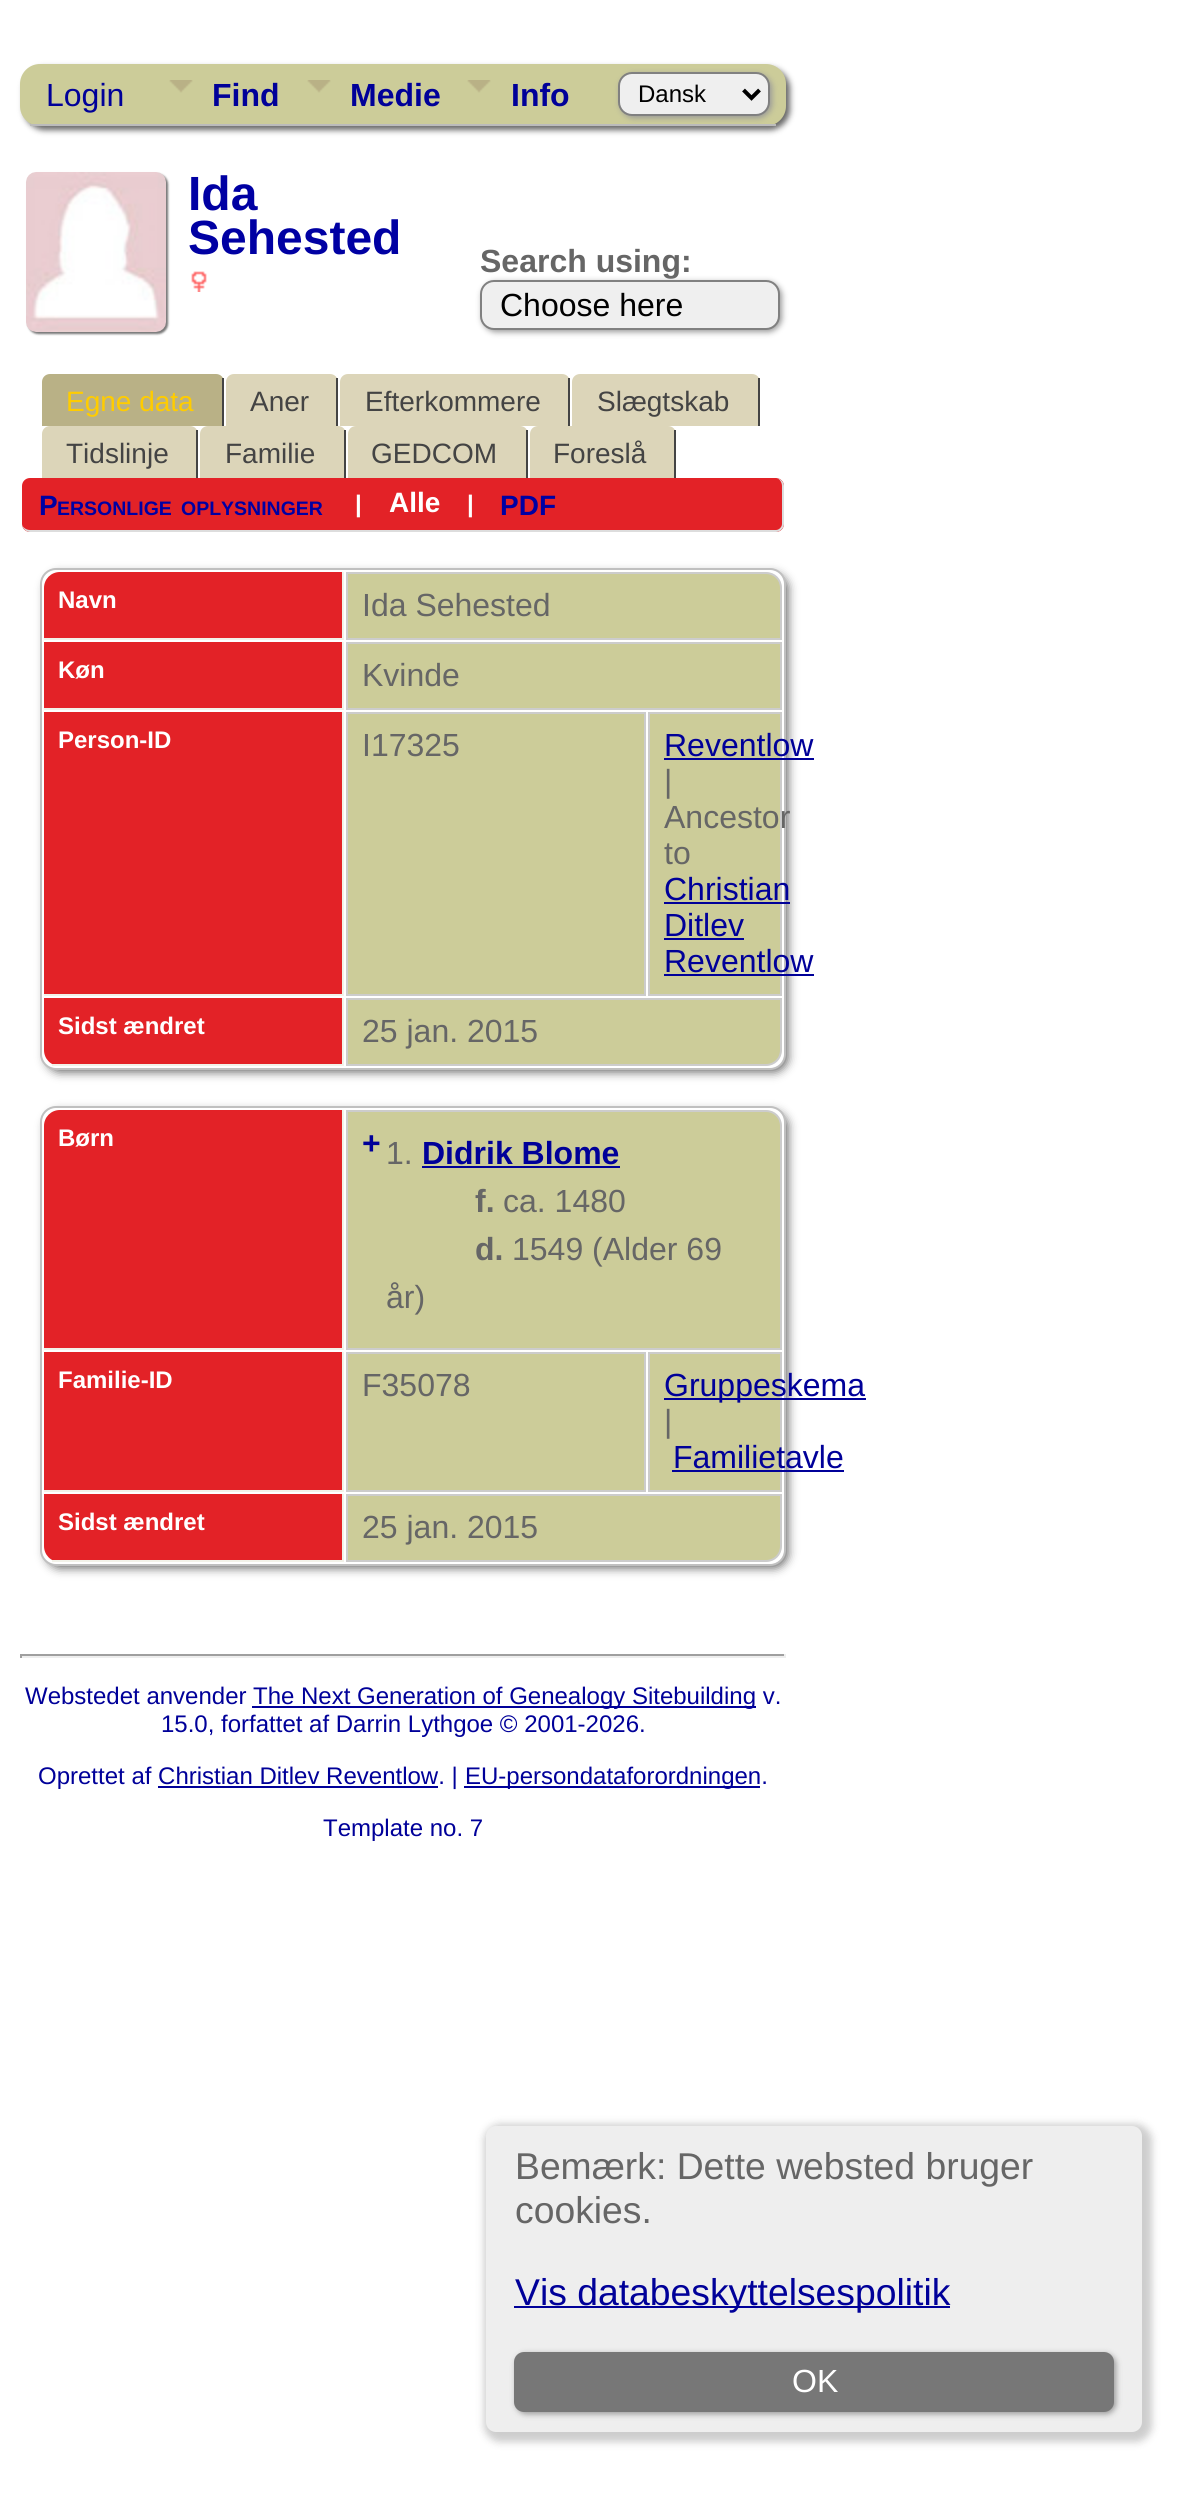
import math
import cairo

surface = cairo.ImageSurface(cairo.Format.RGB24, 1178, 2512)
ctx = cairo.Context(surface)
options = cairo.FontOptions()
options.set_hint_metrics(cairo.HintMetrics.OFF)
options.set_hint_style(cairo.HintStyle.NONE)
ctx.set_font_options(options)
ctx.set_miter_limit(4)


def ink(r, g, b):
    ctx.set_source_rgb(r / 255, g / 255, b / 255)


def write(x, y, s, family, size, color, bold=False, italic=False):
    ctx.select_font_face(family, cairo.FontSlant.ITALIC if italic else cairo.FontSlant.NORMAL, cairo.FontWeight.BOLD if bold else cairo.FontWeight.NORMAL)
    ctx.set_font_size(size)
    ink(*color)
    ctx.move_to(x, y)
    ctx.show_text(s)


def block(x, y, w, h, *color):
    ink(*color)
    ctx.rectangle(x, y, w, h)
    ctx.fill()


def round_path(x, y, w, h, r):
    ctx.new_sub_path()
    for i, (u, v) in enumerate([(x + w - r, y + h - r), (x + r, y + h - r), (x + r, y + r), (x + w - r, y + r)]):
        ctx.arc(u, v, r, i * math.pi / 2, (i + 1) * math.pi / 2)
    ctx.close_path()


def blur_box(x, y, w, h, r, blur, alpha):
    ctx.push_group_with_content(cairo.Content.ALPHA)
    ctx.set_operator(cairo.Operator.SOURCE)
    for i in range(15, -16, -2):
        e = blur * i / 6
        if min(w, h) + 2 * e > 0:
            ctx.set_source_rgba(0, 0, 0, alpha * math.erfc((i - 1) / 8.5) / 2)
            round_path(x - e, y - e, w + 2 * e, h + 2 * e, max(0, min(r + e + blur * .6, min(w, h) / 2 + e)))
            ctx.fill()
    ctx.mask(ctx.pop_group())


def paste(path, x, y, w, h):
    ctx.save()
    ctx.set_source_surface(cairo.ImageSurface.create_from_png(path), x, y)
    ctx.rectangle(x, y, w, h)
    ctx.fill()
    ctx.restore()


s1 = dict(family="Liberation Sans", size=32, color=(0, 0, 153))
s2 = dict(family="Liberation Sans", size=32, color=(0, 0, 153), bold=True)
s3 = dict(family="Liberation Sans", size=24, color=(0, 0, 0))
s4 = dict(family="Liberation Sans", size=48, color=(0, 0, 163), bold=True)
s5 = dict(family="Liberation Sans", size=32, color=(102, 102, 102), bold=True)
s6 = dict(family="Liberation Sans", size=32, color=(0, 0, 0))
s7 = dict(family="Liberation Sans", size=28, color=(255, 204, 0))
s8 = dict(family="Liberation Sans", size=28, color=(68, 68, 68))
s9 = dict(family="Liberation Sans", size=28, color=(0, 0, 163), bold=True)
s10 = dict(family="Liberation Sans", size=19.5, color=(0, 0, 163), bold=True)
s11 = dict(family="Liberation Sans", size=24, color=(255, 255, 255), bold=True)
s12 = dict(family="Liberation Sans", size=28, color=(255, 255, 255), bold=True)
s13 = dict(family="Liberation Sans", size=32, color=(102, 102, 102))
s14 = dict(family="Liberation Sans", size=24, color=(0, 0, 153))
s15 = dict(family="Liberation Sans", size=37.3, color=(102, 102, 102))
s16 = dict(family="Liberation Sans", size=37.3, color=(0, 0, 153))
s17 = dict(family="Liberation Sans", size=32, color=(255, 255, 255))

ink(255, 255, 255)
ctx.paint()
ink(102, 102, 102)
blur_box(24, 68, 766, 62, 20, 3, 1)
ink(204, 204, 153)
round_path(20, 64, 766, 62, 20)
ctx.fill()
block(30, 124, 746, 2, 187, 187, 187)
write(46, 106, "Login", **s1)
paste("pic1.png", 169, 80, 24, 13)
write(212, 106, "Find", **s2)
paste("pic1.png", 307, 80, 24, 13)
write(350, 106, "Medie", **s2)
paste("pic1.png", 467, 80, 24, 13)
write(511, 106, "Info", **s2)
ink(153, 153, 153)
blur_box(620, 74, 152, 44, 14, 3, 1)
ink(239, 239, 239)
round_path(619, 73, 150, 42, 13)
ctx.fill_preserve()
ink(128, 128, 128)
ctx.stroke()
ctx.new_path()
ctx.move_to(743.5, 90)
ctx.line_to(751.5, 98)
ctx.line_to(759.5, 90)
ink(0, 0, 0)
ctx.set_line_width(4)
ctx.stroke()
write(638, 102, "Dansk", **s3)
ink(119, 119, 119)
blur_box(28, 174, 140, 160, 10, 1, 1)
paste("pic2.png", 26, 172, 140, 160)
write(188, 210, "Ida", **s4)
write(188, 254, "Sehested", **s4)
paste("pic3.png", 191, 271, 16, 21)
write(480, 272, "Search using:", **s5)
ink(153, 153, 153)
blur_box(482, 282, 300, 50, 14, 3, 1)
ink(239, 239, 239)
round_path(481, 281, 298, 48, 13)
ctx.fill_preserve()
ink(128, 128, 128)
ctx.set_line_width(2)
ctx.stroke()
write(500, 316, "Choose here", **s6)
ink(185, 177, 134)
ctx.new_path()
ctx.move_to(50, 374)
ctx.line_to(216, 374)
ctx.curve_to(220.5, 374, 224, 377.5, 224, 382)
ctx.line_to(224, 426)
ctx.line_to(42, 426)
ctx.line_to(42, 382)
ctx.curve_to(42, 377.5, 45.5, 374, 50, 374)
ctx.close_path()
ctx.fill()
block(222, 378, 2, 48, 68, 68, 68)
write(66, 411, "Egne data", **s7)
ink(220, 213, 185)
ctx.new_path()
ctx.move_to(234, 374)
ctx.line_to(330, 374)
ctx.curve_to(334.5, 374, 338, 377.5, 338, 382)
ctx.line_to(338, 426)
ctx.line_to(226, 426)
ctx.line_to(226, 382)
ctx.curve_to(226, 377.5, 229.5, 374, 234, 374)
ctx.close_path()
ctx.fill()
block(336, 378, 2, 48, 68, 68, 68)
write(250, 411, "Aner", **s8)
ink(220, 213, 185)
ctx.new_path()
ctx.move_to(348, 374)
ctx.line_to(562, 374)
ctx.curve_to(566.5, 374, 570, 377.5, 570, 382)
ctx.line_to(570, 426)
ctx.line_to(340, 426)
ctx.line_to(340, 382)
ctx.curve_to(340, 377.5, 343.5, 374, 348, 374)
ctx.close_path()
ctx.fill()
block(568, 378, 2, 48, 68, 68, 68)
write(365, 411, "Efterkommere", **s8)
ink(220, 213, 185)
ctx.new_path()
ctx.move_to(580, 374)
ctx.line_to(752, 374)
ctx.curve_to(756.5, 374, 760, 377.5, 760, 382)
ctx.line_to(760, 426)
ctx.line_to(572, 426)
ctx.line_to(572, 382)
ctx.curve_to(572, 377.5, 575.5, 374, 580, 374)
ctx.close_path()
ctx.fill()
block(758, 378, 2, 48, 68, 68, 68)
write(597, 411, "Slægtskab", **s8)
ink(220, 213, 185)
ctx.new_path()
ctx.move_to(50, 426)
ctx.line_to(190, 426)
ctx.curve_to(194.5, 426, 198, 429.5, 198, 434)
ctx.line_to(198, 478)
ctx.line_to(42, 478)
ctx.line_to(42, 434)
ctx.curve_to(42, 429.5, 45.5, 426, 50, 426)
ctx.close_path()
ctx.fill()
block(196, 430, 2, 48, 68, 68, 68)
write(66, 463, "Tidslinje", **s8)
ink(220, 213, 185)
ctx.new_path()
ctx.move_to(208, 426)
ctx.line_to(338, 426)
ctx.curve_to(342.5, 426, 346, 429.5, 346, 434)
ctx.line_to(346, 478)
ctx.line_to(200, 478)
ctx.line_to(200, 434)
ctx.curve_to(200, 429.5, 203.5, 426, 208, 426)
ctx.close_path()
ctx.fill()
block(344, 430, 2, 48, 68, 68, 68)
write(225, 463, "Familie", **s8)
ink(220, 213, 185)
ctx.new_path()
ctx.move_to(356, 426)
ctx.line_to(520, 426)
ctx.curve_to(524.5, 426, 528, 429.5, 528, 434)
ctx.line_to(528, 478)
ctx.line_to(348, 478)
ctx.line_to(348, 434)
ctx.curve_to(348, 429.5, 351.5, 426, 356, 426)
ctx.close_path()
ctx.fill()
block(526, 430, 2, 48, 68, 68, 68)
write(371, 463, "GEDCOM", **s8)
ink(220, 213, 185)
ctx.new_path()
ctx.move_to(538, 426)
ctx.line_to(668, 426)
ctx.curve_to(672.5, 426, 676, 429.5, 676, 434)
ctx.line_to(676, 478)
ctx.line_to(530, 478)
ctx.line_to(530, 434)
ctx.curve_to(530, 429.5, 533.5, 426, 538, 426)
ctx.close_path()
ctx.fill()
block(674, 430, 2, 48, 68, 68, 68)
write(553, 463, "Foreslå", **s8)
ink(227, 34, 39)
round_path(22, 478, 762, 54, 8)
ctx.fill()
ink(221, 221, 221)
ctx.set_fill_rule(cairo.FillRule.EVEN_ODD)
ctx.new_path()
ctx.move_to(30, 478)
ctx.line_to(776, 478)
ctx.curve_to(780, 478, 784, 482, 784, 486)
ctx.line_to(784, 524)
ctx.curve_to(784, 528, 780, 532, 776, 532)
ctx.line_to(30, 532)
ctx.curve_to(26, 532, 22, 528, 22, 524)
ctx.line_to(22, 486)
ctx.curve_to(22, 482, 26, 478, 30, 478)
ctx.close_path()
ctx.move_to(30, 478)
ctx.line_to(776, 478)
ctx.curve_to(779, 478, 782, 482, 782, 486)
ctx.line_to(782, 524)
ctx.curve_to(782, 527, 779, 530, 776, 530)
ctx.line_to(30, 530)
ctx.curve_to(26, 530, 22, 527, 22, 524)
ctx.line_to(22, 486)
ctx.curve_to(22, 482, 26, 478, 30, 478)
ctx.close_path()
ctx.fill()
write(39, 515, "P", **s9)
write(57, 515, "ERSONLIGE", **s10)
write(181, 515, "OPLYSNINGER", **s10)
write(355, 512, "|", **s11)
write(389, 512, "Alle", **s12)
write(467, 512, "|", **s11)
write(500, 515, "PDF", **s9)
ink(102, 102, 102)
blur_box(46, 574, 742, 498, 14, 5, 1)
ink(255, 255, 255)
round_path(41, 569, 744, 500, 15)
ctx.fill_preserve()
ink(192, 192, 192)
ctx.stroke()
ink(227, 34, 39)
ctx.new_path()
ctx.move_to(60, 572)
ctx.line_to(344, 572)
ctx.line_to(344, 640)
ctx.line_to(44, 640)
ctx.line_to(44, 588)
ctx.curve_to(44, 579, 51, 572, 60, 572)
ctx.close_path()
ctx.fill()
block(342, 572, 2, 68, 242, 242, 233)
block(44, 638, 300, 2, 242, 242, 233)
write(58, 608, "Navn", **s11)
ink(204, 204, 153)
ctx.new_path()
ctx.move_to(347, 573)
ctx.line_to(766, 573)
ctx.curve_to(774.5, 573, 781, 579.5, 781, 588)
ctx.line_to(781, 639)
ctx.line_to(347, 639)
ctx.close_path()
ctx.fill_preserve()
ink(204, 204, 204)
ctx.stroke()
write(362, 616, "Ida Sehested", **s13)
block(44, 642, 298, 66, 227, 34, 39)
block(342, 642, 2, 68, 242, 242, 233)
block(44, 708, 300, 2, 242, 242, 233)
write(58, 678, "Køn", **s11)
ink(204, 204, 153)
ctx.rectangle(347, 643, 434, 66)
ctx.fill_preserve()
ink(204, 204, 204)
ctx.stroke()
write(362, 686, "Kvinde", **s13)
block(44, 712, 298, 282, 227, 34, 39)
block(342, 712, 2, 284, 242, 242, 233)
block(44, 994, 300, 2, 242, 242, 233)
write(58, 748, "Person-ID", **s11)
ink(204, 204, 153)
ctx.rectangle(347, 713, 298, 282)
ctx.fill_preserve()
ink(204, 204, 204)
ctx.stroke()
write(362, 756, "I17325", **s13)
ink(204, 204, 153)
ctx.rectangle(649, 713, 132, 282)
ctx.fill_preserve()
ink(204, 204, 204)
ctx.stroke()
write(664, 756, "Reventlow", **s1)
block(664, 758, 150, 2, 0, 0, 153)
write(664, 792, "|", **s13)
write(664, 828, "Ancestor", **s13)
write(664, 864, "to", **s13)
write(664, 900, "Christian", **s1)
block(664, 902, 126, 2, 0, 0, 153)
write(664, 936, "Ditlev", **s1)
block(664, 938, 80, 2, 0, 0, 153)
write(664, 972, "Reventlow", **s1)
block(664, 974, 150, 2, 0, 0, 153)
ink(227, 34, 39)
ctx.new_path()
ctx.move_to(44, 998)
ctx.line_to(344, 998)
ctx.line_to(344, 1066)
ctx.line_to(60, 1066)
ctx.curve_to(51, 1066, 44, 1059, 44, 1050)
ctx.close_path()
ctx.fill()
block(342, 998, 2, 68, 242, 242, 233)
block(52, 1064, 292, 2, 242, 242, 233)
write(58, 1034, "Sidst ændret", **s11)
ink(204, 204, 153)
ctx.new_path()
ctx.move_to(347, 999)
ctx.line_to(781, 999)
ctx.line_to(781, 1050)
ctx.curve_to(781, 1058.5, 774.5, 1065, 766, 1065)
ctx.line_to(347, 1065)
ctx.close_path()
ctx.fill_preserve()
ink(204, 204, 204)
ctx.stroke()
write(362, 1042, "25 jan. 2015", **s13)
ink(102, 102, 102)
blur_box(46, 1112, 742, 456, 14, 5, 1)
ink(255, 255, 255)
round_path(41, 1107, 744, 458, 15)
ctx.fill_preserve()
ink(192, 192, 192)
ctx.stroke()
ink(227, 34, 39)
ctx.new_path()
ctx.move_to(60, 1110)
ctx.line_to(344, 1110)
ctx.line_to(344, 1350)
ctx.line_to(44, 1350)
ctx.line_to(44, 1126)
ctx.curve_to(44, 1117, 51, 1110, 60, 1110)
ctx.close_path()
ctx.fill()
block(342, 1110, 2, 240, 242, 242, 233)
block(44, 1348, 300, 2, 242, 242, 233)
write(58, 1146, "Børn", **s11)
ink(204, 204, 153)
ctx.new_path()
ctx.move_to(347, 1111)
ctx.line_to(766, 1111)
ctx.curve_to(774.5, 1111, 781, 1117.5, 781, 1126)
ctx.line_to(781, 1349)
ctx.line_to(347, 1349)
ctx.close_path()
ctx.fill_preserve()
ink(204, 204, 204)
ctx.stroke()
write(362, 1154, "+", **s2)
write(386, 1164, "1.", **s13)
write(422, 1164, "Didrik Blome", **s2)
block(422, 1166, 198, 2, 0, 0, 153)
write(475, 1212, "f.", **s5)
write(503, 1212, "ca. 1480", **s13)
write(475, 1260, "d.", **s5)
write(512, 1260, "1549 (Alder 69", **s13)
write(386, 1308, "år)", **s13)
block(44, 1352, 298, 138, 227, 34, 39)
block(342, 1352, 2, 140, 242, 242, 233)
block(44, 1490, 300, 2, 242, 242, 233)
write(58, 1388, "Familie-ID", **s11)
ink(204, 204, 153)
ctx.rectangle(347, 1353, 298, 138)
ctx.fill_preserve()
ink(204, 204, 204)
ctx.stroke()
write(362, 1396, "F35078", **s13)
ink(204, 204, 153)
ctx.rectangle(649, 1353, 132, 138)
ctx.fill_preserve()
ink(204, 204, 204)
ctx.stroke()
block(664, 1398, 202, 2, 0, 0, 153)
write(664, 1396, "Gruppeskema", **s1)
write(664, 1432, "|", **s13)
write(673, 1468, "Familietavle", **s1)
block(672, 1470, 172, 2, 0, 0, 153)
ink(227, 34, 39)
ctx.new_path()
ctx.move_to(44, 1494)
ctx.line_to(344, 1494)
ctx.line_to(344, 1562)
ctx.line_to(60, 1562)
ctx.curve_to(51, 1562, 44, 1555, 44, 1546)
ctx.close_path()
ctx.fill()
block(342, 1494, 2, 68, 242, 242, 233)
block(52, 1560, 292, 2, 242, 242, 233)
write(58, 1530, "Sidst ændret", **s11)
ink(204, 204, 153)
ctx.new_path()
ctx.move_to(347, 1495)
ctx.line_to(781, 1495)
ctx.line_to(781, 1546)
ctx.curve_to(781, 1554.5, 774.5, 1561, 766, 1561)
ctx.line_to(347, 1561)
ctx.close_path()
ctx.fill_preserve()
ink(204, 204, 204)
ctx.stroke()
write(362, 1538, "25 jan. 2015", **s13)
block(20, 1654, 766, 2, 159, 159, 159)
block(784, 1654, 2, 4, 238, 238, 238)
block(20, 1656, 766, 2, 238, 238, 238)
block(20, 1654, 2, 4, 159, 159, 159)
write(25, 1704, "Webstedet anvender", **s14)
block(252, 1706, 504, 2, 0, 0, 153)
write(253, 1704, "The Next Generation of Genealogy Sitebuilding v.", **s14)
write(161, 1732, "15.0, forfattet af Darrin Lythgoe © 2001-2026.", **s14)
write(38, 1784, "Oprettet af Christian Ditlev Reventlow. |", **s14)
block(464, 1786, 296, 2, 0, 0, 153)
write(465, 1784, "EU-persondataforordningen.", **s14)
block(158, 1786, 280, 2, 0, 0, 153)
write(323, 1836, "Template no. 7", **s14)
ink(0, 0, 0)
blur_box(484, 2124, 668, 318, 16, 4, 0.2)
ink(238, 238, 238)
round_path(486, 2126, 656, 306, 10)
ctx.fill()
write(515, 2179, "Bemærk: Dette websted bruger", **s15)
write(515, 2223, "cookies.", **s15)
block(514, 2306, 436, 2, 0, 0, 153)
write(515, 2305, "Vis databeskyttelsespolitik", **s16)
ink(153, 153, 153)
blur_box(516, 2354, 600, 60, 10, 3, 1)
ink(119, 119, 119)
round_path(514, 2352, 600, 60, 10)
ctx.fill()
write(792, 2392, "OK", **s17)
surface.write_to_png("screenshot.png")
